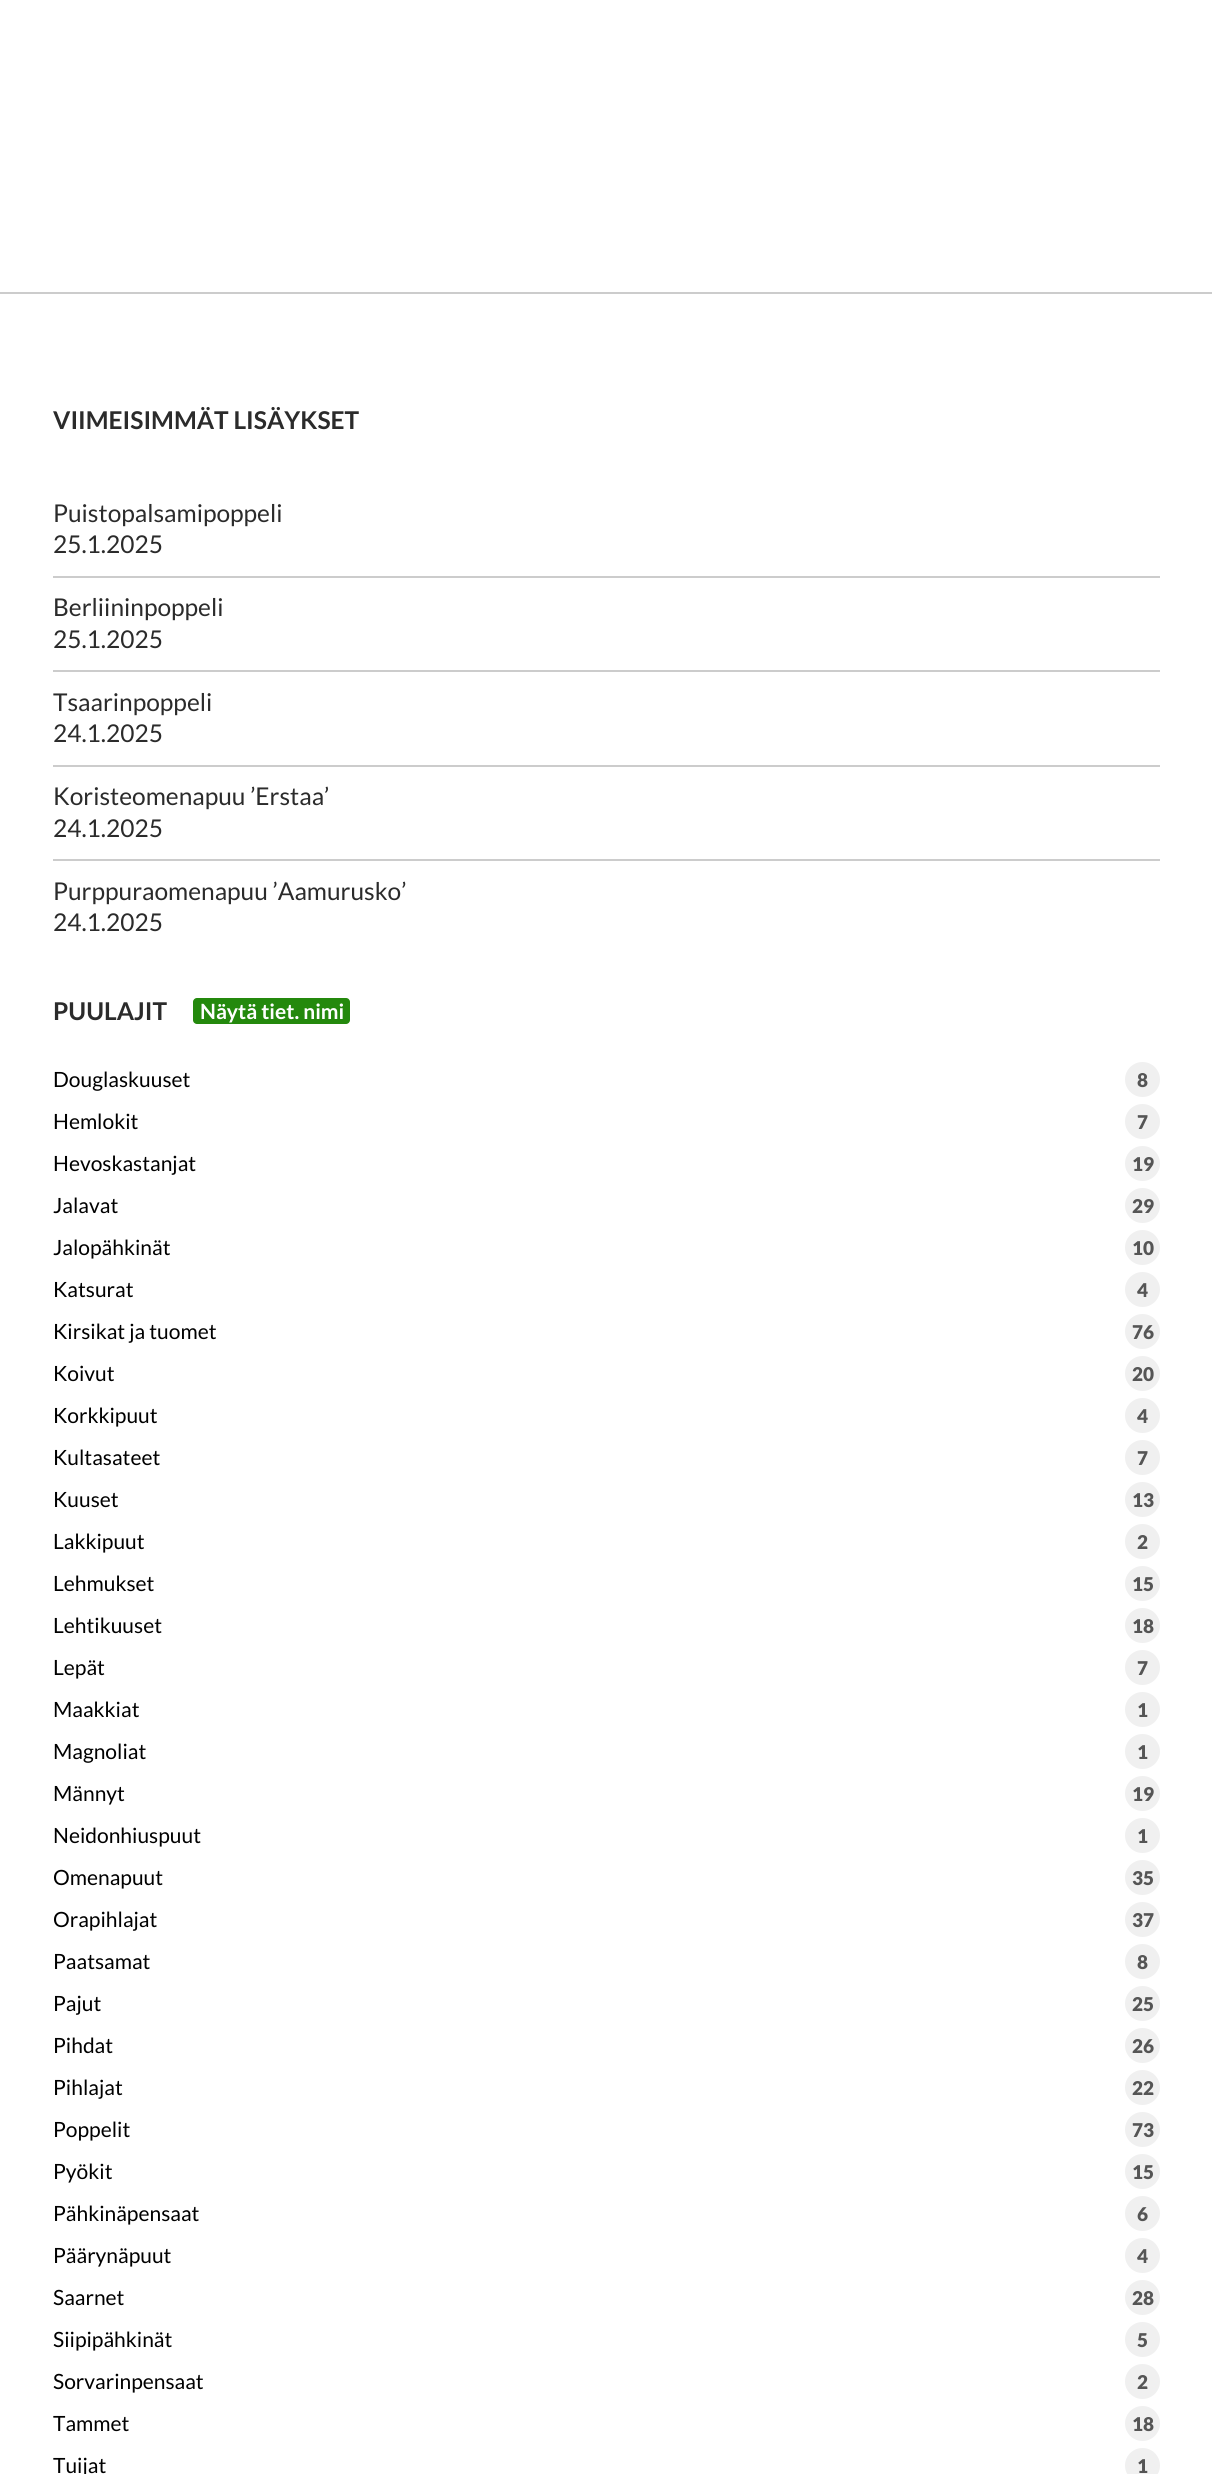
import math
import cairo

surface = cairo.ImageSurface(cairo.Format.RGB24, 1212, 2474)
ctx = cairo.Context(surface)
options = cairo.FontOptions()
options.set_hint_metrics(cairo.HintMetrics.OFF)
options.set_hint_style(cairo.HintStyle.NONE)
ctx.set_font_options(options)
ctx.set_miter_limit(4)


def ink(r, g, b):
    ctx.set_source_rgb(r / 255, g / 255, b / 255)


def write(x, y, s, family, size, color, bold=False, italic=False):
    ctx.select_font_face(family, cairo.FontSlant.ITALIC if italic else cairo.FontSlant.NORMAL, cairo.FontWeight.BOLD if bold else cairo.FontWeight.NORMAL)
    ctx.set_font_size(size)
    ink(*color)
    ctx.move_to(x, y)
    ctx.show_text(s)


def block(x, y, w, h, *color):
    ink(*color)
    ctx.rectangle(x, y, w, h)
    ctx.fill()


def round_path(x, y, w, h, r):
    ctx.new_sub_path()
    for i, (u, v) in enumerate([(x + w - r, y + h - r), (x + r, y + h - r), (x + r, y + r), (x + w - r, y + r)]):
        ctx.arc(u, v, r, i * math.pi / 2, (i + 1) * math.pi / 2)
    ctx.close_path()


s1 = dict(family="Lato", size=24.5, color=(43, 43, 43), bold=True)
s2 = dict(family="Lato", size=24.5, color=(43, 43, 43))
s3 = dict(family="Lato", size=21, color=(255, 255, 255), bold=True)
s4 = dict(family="Lato", size=21, color=(0, 0, 0))
s5 = dict(family="Lato Black", size=19, color=(85, 85, 85))

ink(255, 255, 255)
ctx.paint()
block(0, 292, 1212, 2, 204, 204, 204)
write(53, 429, "VIIMEISIMMÄT LISÄYKSET", **s1)
write(53, 522, "Puistopalsamipoppeli", **s2)
write(53, 553, "25.1.2025", **s2)
block(53, 576, 1107, 2, 204, 204, 204)
write(53, 616, "Berliininpoppeli", **s2)
write(53, 648, "25.1.2025", **s2)
block(53, 670, 1107, 2, 204, 204, 204)
write(53, 711, "Tsaarinpoppeli", **s2)
write(53, 742, "24.1.2025", **s2)
block(53, 765, 1107, 2, 204, 204, 204)
write(53, 805, "Koristeomenapuu ’Erstaa’", **s2)
write(53, 837, "24.1.2025", **s2)
block(53, 859, 1107, 2, 204, 204, 204)
write(53, 900, "Purppuraomenapuu ’Aamurusko’", **s2)
write(53, 931, "24.1.2025", **s2)
write(53, 1020, "PUULAJIT", **s1)
ink(36, 137, 13)
round_path(193, 998, 157, 26, 4)
ctx.fill()
write(200, 1019, "Näytä tiet. nimi", **s3)
write(53, 1087, "Douglaskuuset", **s4)
ink(240, 240, 240)
ctx.new_path()
ctx.arc(1142.5, 1079.5, 17.5, 0, 2 * math.pi)
ctx.fill()
write(1137, 1087, "8", **s5)
write(53, 1129, "Hemlokit", **s4)
ink(240, 240, 240)
ctx.new_path()
ctx.arc(1142.5, 1121.5, 17.5, 0, 2 * math.pi)
ctx.fill()
write(1137, 1129, "7", **s5)
write(53, 1171, "Hevoskastanjat", **s4)
ink(240, 240, 240)
ctx.new_path()
ctx.arc(1142.5, 1163.5, 17.5, 0, 2 * math.pi)
ctx.fill()
write(1132, 1171, "19", **s5)
write(53, 1213, "Jalavat", **s4)
ink(240, 240, 240)
ctx.new_path()
ctx.arc(1142.5, 1205.5, 17.5, 0, 2 * math.pi)
ctx.fill()
write(1132, 1213, "29", **s5)
write(53, 1255, "Jalopähkinät", **s4)
ink(240, 240, 240)
ctx.new_path()
ctx.arc(1142.5, 1247.5, 17.5, 0, 2 * math.pi)
ctx.fill()
write(1132, 1255, "10", **s5)
write(53, 1297, "Katsurat", **s4)
ink(240, 240, 240)
ctx.new_path()
ctx.arc(1142.5, 1289.5, 17.5, 0, 2 * math.pi)
ctx.fill()
write(1137, 1297, "4", **s5)
write(53, 1339, "Kirsikat ja tuomet", **s4)
ink(240, 240, 240)
ctx.new_path()
ctx.arc(1142.5, 1331.5, 17.5, 0, 2 * math.pi)
ctx.fill()
write(1132, 1339, "76", **s5)
write(53, 1381, "Koivut", **s4)
ink(240, 240, 240)
ctx.new_path()
ctx.arc(1142.5, 1373.5, 17.5, 0, 2 * math.pi)
ctx.fill()
write(1132, 1381, "20", **s5)
write(53, 1423, "Korkkipuut", **s4)
ink(240, 240, 240)
ctx.new_path()
ctx.arc(1142.5, 1415.5, 17.5, 0, 2 * math.pi)
ctx.fill()
write(1137, 1423, "4", **s5)
write(53, 1465, "Kultasateet", **s4)
ink(240, 240, 240)
ctx.new_path()
ctx.arc(1142.5, 1457.5, 17.5, 0, 2 * math.pi)
ctx.fill()
write(1137, 1465, "7", **s5)
write(53, 1507, "Kuuset", **s4)
ink(240, 240, 240)
ctx.new_path()
ctx.arc(1142.5, 1499.5, 17.5, 0, 2 * math.pi)
ctx.fill()
write(1132, 1507, "13", **s5)
write(53, 1549, "Lakkipuut", **s4)
ink(240, 240, 240)
ctx.new_path()
ctx.arc(1142.5, 1541.5, 17.5, 0, 2 * math.pi)
ctx.fill()
write(1137, 1549, "2", **s5)
write(53, 1591, "Lehmukset", **s4)
ink(240, 240, 240)
ctx.new_path()
ctx.arc(1142.5, 1583.5, 17.5, 0, 2 * math.pi)
ctx.fill()
write(1132, 1591, "15", **s5)
write(53, 1633, "Lehtikuuset", **s4)
ink(240, 240, 240)
ctx.new_path()
ctx.arc(1142.5, 1625.5, 17.5, 0, 2 * math.pi)
ctx.fill()
write(1132, 1633, "18", **s5)
write(53, 1675, "Lepät", **s4)
ink(240, 240, 240)
ctx.new_path()
ctx.arc(1142.5, 1667.5, 17.5, 0, 2 * math.pi)
ctx.fill()
write(1137, 1675, "7", **s5)
write(53, 1717, "Maakkiat", **s4)
ink(240, 240, 240)
ctx.new_path()
ctx.arc(1142.5, 1709.5, 17.5, 0, 2 * math.pi)
ctx.fill()
write(1137, 1717, "1", **s5)
write(53, 1759, "Magnoliat", **s4)
ink(240, 240, 240)
ctx.new_path()
ctx.arc(1142.5, 1751.5, 17.5, 0, 2 * math.pi)
ctx.fill()
write(1137, 1759, "1", **s5)
write(53, 1801, "Männyt", **s4)
ink(240, 240, 240)
ctx.new_path()
ctx.arc(1142.5, 1793.5, 17.5, 0, 2 * math.pi)
ctx.fill()
write(1132, 1801, "19", **s5)
write(53, 1843, "Neidonhiuspuut", **s4)
ink(240, 240, 240)
ctx.new_path()
ctx.arc(1142.5, 1835.5, 17.5, 0, 2 * math.pi)
ctx.fill()
write(1137, 1843, "1", **s5)
write(53, 1885, "Omenapuut", **s4)
ink(240, 240, 240)
ctx.new_path()
ctx.arc(1142.5, 1877.5, 17.5, 0, 2 * math.pi)
ctx.fill()
write(1132, 1885, "35", **s5)
write(53, 1927, "Orapihlajat", **s4)
ink(240, 240, 240)
ctx.new_path()
ctx.arc(1142.5, 1919.5, 17.5, 0, 2 * math.pi)
ctx.fill()
write(1132, 1927, "37", **s5)
write(53, 1969, "Paatsamat", **s4)
ink(240, 240, 240)
ctx.new_path()
ctx.arc(1142.5, 1961.5, 17.5, 0, 2 * math.pi)
ctx.fill()
write(1137, 1969, "8", **s5)
write(53, 2011, "Pajut", **s4)
ink(240, 240, 240)
ctx.new_path()
ctx.arc(1142.5, 2003.5, 17.5, 0, 2 * math.pi)
ctx.fill()
write(1132, 2011, "25", **s5)
write(53, 2053, "Pihdat", **s4)
ink(240, 240, 240)
ctx.new_path()
ctx.arc(1142.5, 2045.5, 17.5, 0, 2 * math.pi)
ctx.fill()
write(1132, 2053, "26", **s5)
write(53, 2095, "Pihlajat", **s4)
ink(240, 240, 240)
ctx.new_path()
ctx.arc(1142.5, 2087.5, 17.5, 0, 2 * math.pi)
ctx.fill()
write(1132, 2095, "22", **s5)
write(53, 2137, "Poppelit", **s4)
ink(240, 240, 240)
ctx.new_path()
ctx.arc(1142.5, 2129.5, 17.5, 0, 2 * math.pi)
ctx.fill()
write(1132, 2137, "73", **s5)
write(53, 2179, "Pyökit", **s4)
ink(240, 240, 240)
ctx.new_path()
ctx.arc(1142.5, 2171.5, 17.5, 0, 2 * math.pi)
ctx.fill()
write(1132, 2179, "15", **s5)
write(53, 2221, "Pähkinäpensaat", **s4)
ink(240, 240, 240)
ctx.new_path()
ctx.arc(1142.5, 2213.5, 17.5, 0, 2 * math.pi)
ctx.fill()
write(1137, 2221, "6", **s5)
write(53, 2263, "Päärynäpuut", **s4)
ink(240, 240, 240)
ctx.new_path()
ctx.arc(1142.5, 2255.5, 17.5, 0, 2 * math.pi)
ctx.fill()
write(1137, 2263, "4", **s5)
write(53, 2305, "Saarnet", **s4)
ink(240, 240, 240)
ctx.new_path()
ctx.arc(1142.5, 2297.5, 17.5, 0, 2 * math.pi)
ctx.fill()
write(1132, 2305, "28", **s5)
write(53, 2347, "Siipipähkinät", **s4)
ink(240, 240, 240)
ctx.new_path()
ctx.arc(1142.5, 2339.5, 17.5, 0, 2 * math.pi)
ctx.fill()
write(1137, 2347, "5", **s5)
write(53, 2389, "Sorvarinpensaat", **s4)
ink(240, 240, 240)
ctx.new_path()
ctx.arc(1142.5, 2381.5, 17.5, 0, 2 * math.pi)
ctx.fill()
write(1137, 2389, "2", **s5)
write(53, 2431, "Tammet", **s4)
ink(240, 240, 240)
ctx.new_path()
ctx.arc(1142.5, 2423.5, 17.5, 0, 2 * math.pi)
ctx.fill()
write(1132, 2431, "18", **s5)
write(53, 2473, "Tuijat", **s4)
ink(240, 240, 240)
ctx.new_path()
ctx.arc(1142.5, 2465.5, 17.5, 0, 2 * math.pi)
ctx.fill()
write(1137, 2473, "1", **s5)
surface.write_to_png("screenshot.png")
